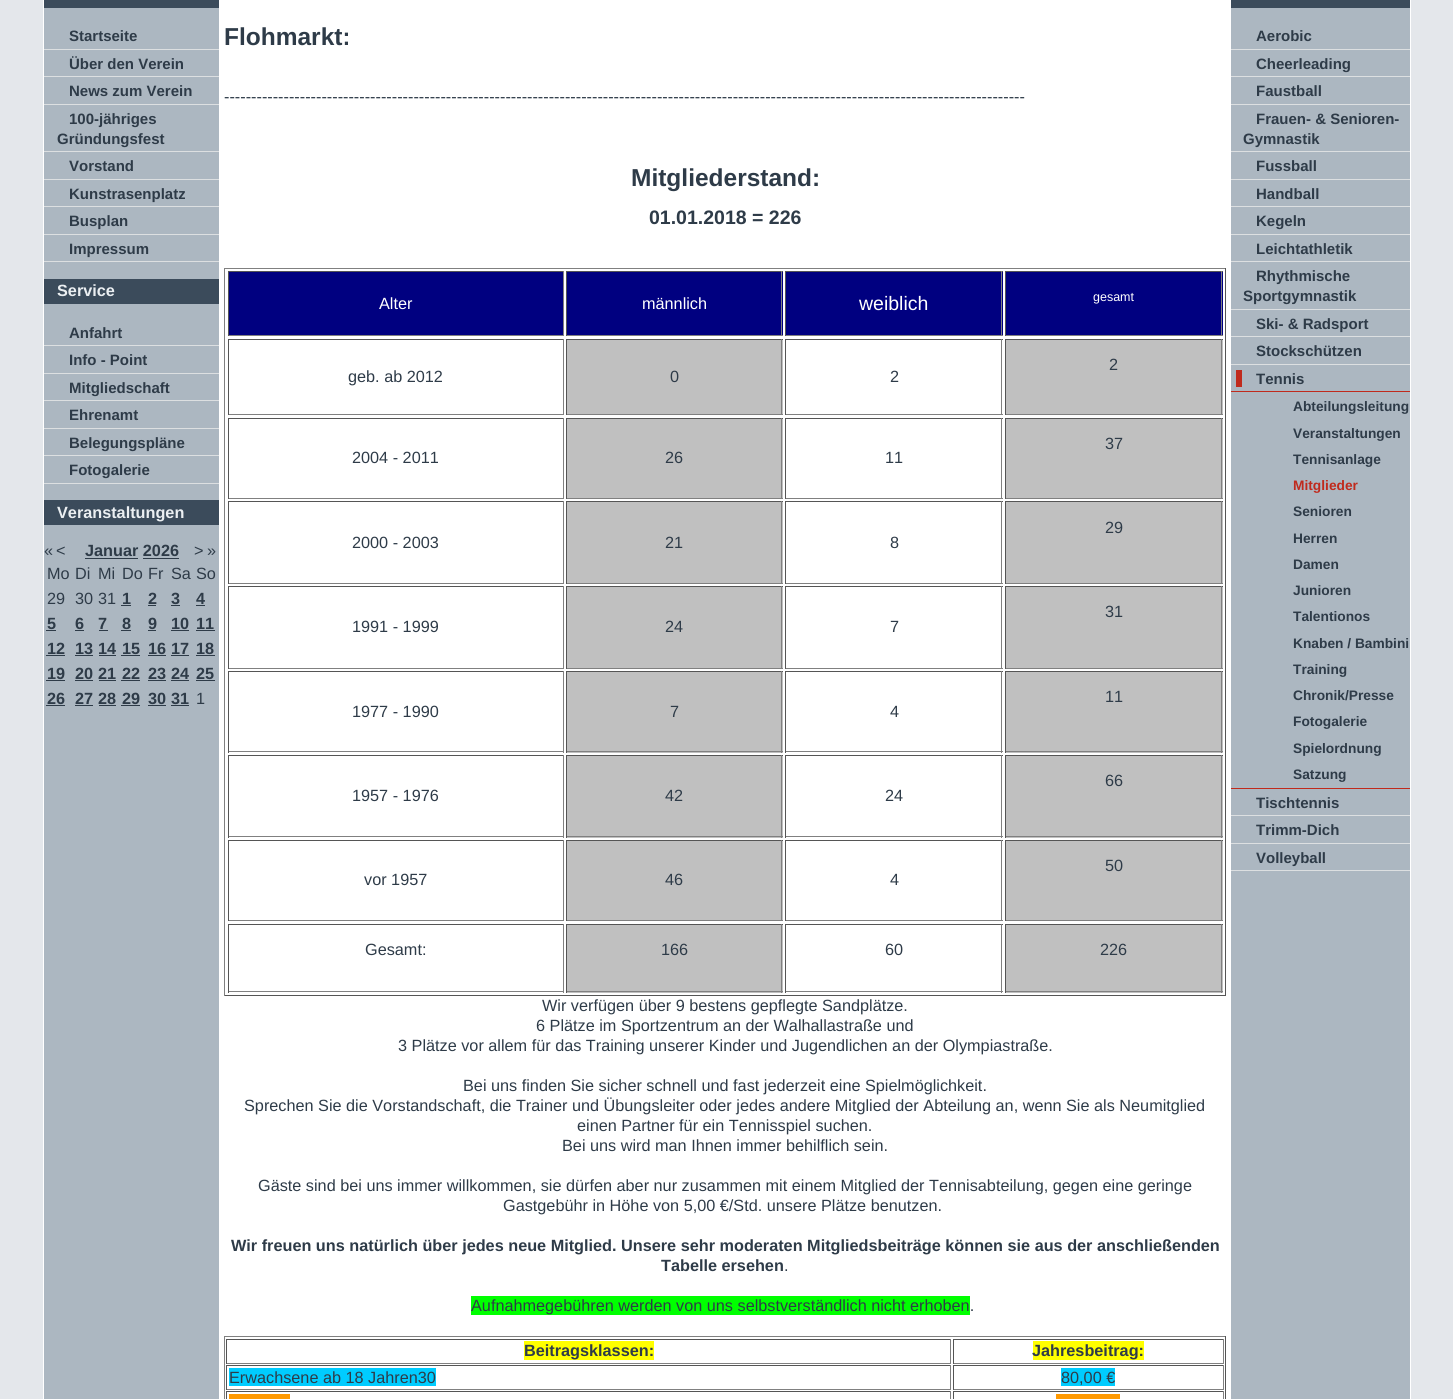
import math
import cairo

surface = cairo.ImageSurface(cairo.Format.RGB24, 1453, 1399)
ctx = cairo.Context(surface)
options = cairo.FontOptions()
options.set_hint_metrics(cairo.HintMetrics.OFF)
options.set_hint_style(cairo.HintStyle.NONE)
ctx.set_font_options(options)
ctx.set_miter_limit(4)


def ink(r, g, b):
    ctx.set_source_rgb(r / 255, g / 255, b / 255)


def write(x, y, s, family, size, color, bold=False, italic=False):
    ctx.select_font_face(family, cairo.FontSlant.ITALIC if italic else cairo.FontSlant.NORMAL, cairo.FontWeight.BOLD if bold else cairo.FontWeight.NORMAL)
    ctx.set_font_size(size)
    ink(*color)
    ctx.move_to(x, y)
    ctx.show_text(s)


def block(x, y, w, h, *color):
    ink(*color)
    ctx.rectangle(x, y, w, h)
    ctx.fill()


s1 = dict(family="Liberation Sans", size=15, color=(46, 59, 72), bold=True)
s2 = dict(family="Liberation Sans", size=16.25, color=(235, 239, 242), bold=True)
s3 = dict(family="Liberation Sans", size=16.25, color=(46, 59, 72))
s4 = dict(family="Liberation Sans", size=16.25, color=(46, 59, 72), bold=True)
s5 = dict(family="Liberation Sans", size=24.5, color=(46, 59, 72), bold=True)
s6 = dict(family="Liberation Sans", size=19.5, color=(46, 59, 72), bold=True)
s7 = dict(family="Liberation Sans", size=16.25, color=(255, 255, 255))
s8 = dict(family="Liberation Sans", size=19.5, color=(255, 255, 255))
s9 = dict(family="Liberation Sans", size=12.5, color=(255, 255, 255))
s10 = dict(family="Liberation Sans", size=13.75, color=(46, 59, 72), bold=True)
s11 = dict(family="Liberation Sans", size=13.75, color=(192, 42, 29), bold=True)

ink(228, 231, 235)
ctx.paint()
block(1410, 0, 1, 1399, 255, 255, 255)
block(43, 0, 1, 1399, 255, 255, 255)
block(219, 0, 1012, 1399, 255, 255, 255)
block(44, 8, 175, 1391, 172, 183, 193)
block(44, 0, 175, 8, 59, 75, 91)
block(44, 49, 175, 1, 220, 223, 225)
write(69, 41, "Startseite", **s1)
block(44, 76, 175, 1, 220, 223, 225)
write(69, 69, "Über den Verein", **s1)
block(44, 104, 175, 1, 220, 223, 225)
write(69, 96, "News zum Verein", **s1)
block(44, 151, 175, 1, 220, 223, 225)
write(69, 124, "100-jähriges", **s1)
write(57, 144, "Gründungsfest", **s1)
block(44, 179, 175, 1, 220, 223, 225)
write(69, 171, "Vorstand", **s1)
block(44, 206, 175, 1, 220, 223, 225)
write(69, 199, "Kunstrasenplatz", **s1)
block(44, 234, 175, 1, 220, 223, 225)
write(69, 226, "Busplan", **s1)
block(44, 261, 175, 1, 220, 223, 225)
write(69, 254, "Impressum", **s1)
block(44, 279, 175, 25, 59, 75, 91)
write(57, 296, "Service", **s2)
block(44, 345, 175, 1, 220, 223, 225)
write(69, 338, "Anfahrt", **s1)
block(44, 373, 175, 1, 220, 223, 225)
write(69, 365, "Info - Point", **s1)
block(44, 400, 175, 1, 220, 223, 225)
write(69, 393, "Mitgliedschaft", **s1)
block(44, 428, 175, 1, 220, 223, 225)
write(69, 420, "Ehrenamt", **s1)
block(44, 455, 175, 1, 220, 223, 225)
write(69, 448, "Belegungspläne", **s1)
block(44, 483, 175, 1, 220, 223, 225)
write(69, 475, "Fotogalerie", **s1)
block(44, 500, 175, 25, 59, 75, 91)
write(57, 518, "Veranstaltungen", **s2)
write(44, 556, "«", **s3)
write(56, 556, "<", **s3)
write(85, 556, "Januar 2026", **s4)
block(85, 558, 53, 1, 46, 59, 72)
block(143, 558, 36, 1, 46, 59, 72)
write(194, 556, ">", **s3)
write(207, 556, "»", **s3)
write(47, 579, "Mo", **s3)
write(75, 579, "Di", **s3)
write(98, 579, "Mi", **s3)
write(122, 579, "Do", **s3)
write(148, 579, "Fr", **s3)
write(171, 579, "Sa", **s3)
write(196, 579, "So", **s3)
write(47, 604, "29", **s3)
write(75, 604, "30", **s3)
write(98, 604, "31", **s3)
write(122, 604, "1", **s4)
block(121, 605, 10, 1, 46, 59, 72)
write(148, 604, "2", **s4)
block(148, 605, 8, 1, 46, 59, 72)
write(171, 604, "3", **s4)
block(171, 605, 9, 1, 46, 59, 72)
write(196, 604, "4", **s4)
block(196, 605, 9, 1, 46, 59, 72)
write(47, 629, "5", **s4)
block(46, 630, 10, 1, 46, 59, 72)
write(75, 629, "6", **s4)
block(75, 630, 9, 1, 46, 59, 72)
write(98, 629, "7", **s4)
block(99, 630, 9, 1, 46, 59, 72)
write(122, 629, "8", **s4)
block(121, 630, 10, 1, 46, 59, 72)
write(148, 629, "9", **s4)
block(148, 630, 8, 1, 46, 59, 72)
write(171, 629, "10", **s4)
block(171, 630, 18, 1, 46, 59, 72)
write(196, 629, "11", **s4)
block(196, 630, 19, 1, 46, 59, 72)
write(47, 654, "12", **s4)
block(46, 655, 19, 1, 46, 59, 72)
write(75, 654, "13", **s4)
block(75, 655, 18, 1, 46, 59, 72)
write(98, 654, "14", **s4)
block(99, 655, 17, 1, 46, 59, 72)
write(122, 654, "15", **s4)
block(121, 655, 19, 1, 46, 59, 72)
write(148, 654, "16", **s4)
block(148, 655, 18, 1, 46, 59, 72)
write(171, 654, "17", **s4)
block(171, 655, 18, 1, 46, 59, 72)
write(196, 654, "18", **s4)
block(196, 655, 19, 1, 46, 59, 72)
write(47, 679, "19", **s4)
block(46, 680, 19, 1, 46, 59, 72)
write(75, 679, "20", **s4)
block(75, 680, 18, 1, 46, 59, 72)
write(98, 679, "21", **s4)
block(99, 680, 17, 1, 46, 59, 72)
write(122, 679, "22", **s4)
block(121, 680, 19, 1, 46, 59, 72)
write(148, 679, "23", **s4)
block(148, 680, 18, 1, 46, 59, 72)
write(171, 679, "24", **s4)
block(171, 680, 18, 1, 46, 59, 72)
write(196, 679, "25", **s4)
block(196, 680, 19, 1, 46, 59, 72)
write(47, 704, "26", **s4)
block(46, 705, 19, 1, 46, 59, 72)
write(75, 704, "27", **s4)
block(75, 705, 18, 1, 46, 59, 72)
write(98, 704, "28", **s4)
block(99, 705, 17, 1, 46, 59, 72)
write(122, 704, "29", **s4)
block(121, 705, 19, 1, 46, 59, 72)
write(148, 704, "30", **s4)
block(148, 705, 18, 1, 46, 59, 72)
write(171, 704, "31", **s4)
block(171, 705, 18, 1, 46, 59, 72)
write(196, 704, "1", **s3)
write(224, 45, "Flohmarkt:", **s5)
write(224, 102, "----------------------------------------------------------------------------------------------------------------------------------------------------", **s3)
write(631, 186, "Mitgliederstand:", **s5)
write(649, 224, "01.01.2018 = 226", **s6)
block(224, 268, 1002, 1, 128, 128, 128)
block(1225, 268, 1, 728, 85, 85, 85)
block(224, 995, 1002, 1, 85, 85, 85)
block(224, 268, 1, 728, 128, 128, 128)
block(229, 272, 334, 63, 0, 0, 128)
block(228, 271, 336, 1, 85, 85, 85)
block(563, 271, 1, 65, 128, 128, 128)
block(228, 335, 336, 1, 128, 128, 128)
block(228, 271, 1, 65, 85, 85, 85)
write(379, 309, "Alter", **s7)
block(567, 272, 216, 63, 0, 0, 128)
block(566, 271, 217, 1, 85, 85, 85)
block(781, 271, 1, 65, 128, 128, 128)
block(566, 335, 217, 1, 128, 128, 128)
block(566, 271, 1, 65, 85, 85, 85)
write(642, 309, "männlich", **s7)
block(786, 272, 217, 63, 0, 0, 128)
block(785, 271, 218, 1, 85, 85, 85)
block(1001, 271, 1, 65, 128, 128, 128)
block(785, 335, 218, 1, 128, 128, 128)
block(785, 271, 1, 65, 85, 85, 85)
write(859, 310, "weiblich", **s8)
block(1006, 272, 217, 63, 0, 0, 128)
block(1005, 271, 218, 1, 85, 85, 85)
block(1221, 271, 1, 65, 128, 128, 128)
block(1005, 335, 218, 1, 128, 128, 128)
block(1005, 271, 1, 65, 85, 85, 85)
write(1093, 301, "gesamt", **s9)
block(1006, 340, 217, 74, 192, 192, 192)
block(1005, 339, 218, 1, 85, 85, 85)
block(1221, 339, 1, 76, 128, 128, 128)
block(1005, 414, 218, 1, 128, 128, 128)
block(1005, 339, 1, 76, 85, 85, 85)
write(1109, 370, "2", **s3)
block(228, 339, 336, 1, 85, 85, 85)
block(563, 339, 1, 76, 128, 128, 128)
block(228, 414, 336, 1, 128, 128, 128)
block(228, 339, 1, 76, 85, 85, 85)
write(348, 382, "geb. ab 2012", **s3)
block(567, 340, 216, 74, 192, 192, 192)
block(566, 339, 217, 1, 85, 85, 85)
block(781, 339, 1, 76, 128, 128, 128)
block(566, 414, 217, 1, 128, 128, 128)
block(566, 339, 1, 76, 85, 85, 85)
write(670, 382, "0", **s3)
block(785, 339, 218, 1, 85, 85, 85)
block(1001, 339, 1, 76, 128, 128, 128)
block(785, 414, 218, 1, 128, 128, 128)
block(785, 339, 1, 76, 85, 85, 85)
write(890, 382, "2", **s3)
block(1006, 419, 217, 79, 192, 192, 192)
block(1005, 418, 218, 1, 85, 85, 85)
block(1221, 418, 1, 81, 128, 128, 128)
block(1005, 498, 218, 1, 128, 128, 128)
block(1005, 418, 1, 81, 85, 85, 85)
write(1105, 449, "37", **s3)
block(228, 418, 336, 1, 85, 85, 85)
block(563, 418, 1, 81, 128, 128, 128)
block(228, 498, 336, 1, 128, 128, 128)
block(228, 418, 1, 81, 85, 85, 85)
write(352, 463, "2004 - 2011", **s3)
block(567, 419, 216, 79, 192, 192, 192)
block(566, 418, 217, 1, 85, 85, 85)
block(781, 418, 1, 81, 128, 128, 128)
block(566, 498, 217, 1, 128, 128, 128)
block(566, 418, 1, 81, 85, 85, 85)
write(665, 463, "26", **s3)
block(785, 418, 218, 1, 85, 85, 85)
block(1001, 418, 1, 81, 128, 128, 128)
block(785, 498, 218, 1, 128, 128, 128)
block(785, 418, 1, 81, 85, 85, 85)
write(885, 463, "11", **s3)
block(1006, 502, 217, 81, 192, 192, 192)
block(1005, 501, 218, 1, 85, 85, 85)
block(1221, 501, 1, 83, 128, 128, 128)
block(1005, 583, 218, 1, 128, 128, 128)
block(1005, 501, 1, 83, 85, 85, 85)
write(1105, 533, "29", **s3)
block(228, 501, 336, 1, 85, 85, 85)
block(563, 501, 1, 83, 128, 128, 128)
block(228, 583, 336, 1, 128, 128, 128)
block(228, 501, 1, 83, 85, 85, 85)
write(352, 548, "2000 - 2003", **s3)
block(567, 502, 216, 81, 192, 192, 192)
block(566, 501, 217, 1, 85, 85, 85)
block(781, 501, 1, 83, 128, 128, 128)
block(566, 583, 217, 1, 128, 128, 128)
block(566, 501, 1, 83, 85, 85, 85)
write(665, 548, "21", **s3)
block(785, 501, 218, 1, 85, 85, 85)
block(1001, 501, 1, 83, 128, 128, 128)
block(785, 583, 218, 1, 128, 128, 128)
block(785, 501, 1, 83, 85, 85, 85)
write(890, 548, "8", **s3)
block(1006, 587, 217, 81, 192, 192, 192)
block(1005, 586, 218, 1, 85, 85, 85)
block(1221, 586, 1, 83, 128, 128, 128)
block(1005, 668, 218, 1, 128, 128, 128)
block(1005, 586, 1, 83, 85, 85, 85)
write(1105, 617, "31", **s3)
block(228, 586, 336, 1, 85, 85, 85)
block(563, 586, 1, 83, 128, 128, 128)
block(228, 668, 336, 1, 128, 128, 128)
block(228, 586, 1, 83, 85, 85, 85)
write(352, 632, "1991 - 1999", **s3)
block(567, 587, 216, 81, 192, 192, 192)
block(566, 586, 217, 1, 85, 85, 85)
block(781, 586, 1, 83, 128, 128, 128)
block(566, 668, 217, 1, 128, 128, 128)
block(566, 586, 1, 83, 85, 85, 85)
write(665, 632, "24", **s3)
block(785, 586, 218, 1, 85, 85, 85)
block(1001, 586, 1, 83, 128, 128, 128)
block(785, 668, 218, 1, 128, 128, 128)
block(785, 586, 1, 83, 85, 85, 85)
write(890, 632, "7", **s3)
block(1006, 672, 217, 81, 192, 192, 192)
block(1005, 671, 218, 1, 85, 85, 85)
block(1221, 671, 1, 82, 128, 128, 128)
block(1005, 751, 218, 1, 128, 128, 128)
block(1005, 671, 1, 82, 85, 85, 85)
write(1105, 702, "11", **s3)
block(228, 671, 336, 1, 85, 85, 85)
block(563, 671, 1, 82, 128, 128, 128)
block(228, 751, 336, 1, 128, 128, 128)
block(228, 671, 1, 82, 85, 85, 85)
write(352, 717, "1977 - 1990", **s3)
block(567, 672, 216, 81, 192, 192, 192)
block(566, 671, 217, 1, 85, 85, 85)
block(781, 671, 1, 82, 128, 128, 128)
block(566, 751, 217, 1, 128, 128, 128)
block(566, 671, 1, 82, 85, 85, 85)
write(670, 717, "7", **s3)
block(785, 671, 218, 1, 85, 85, 85)
block(1001, 671, 1, 82, 128, 128, 128)
block(785, 751, 218, 1, 128, 128, 128)
block(785, 671, 1, 82, 85, 85, 85)
write(890, 717, "4", **s3)
block(1006, 756, 217, 82, 192, 192, 192)
block(1005, 755, 218, 1, 85, 85, 85)
block(1221, 755, 1, 83, 128, 128, 128)
block(1005, 836, 218, 1, 128, 128, 128)
block(1005, 755, 1, 83, 85, 85, 85)
write(1105, 786, "66", **s3)
block(228, 755, 336, 1, 85, 85, 85)
block(563, 755, 1, 83, 128, 128, 128)
block(228, 836, 336, 1, 128, 128, 128)
block(228, 755, 1, 83, 85, 85, 85)
write(352, 801, "1957 - 1976", **s3)
block(567, 756, 216, 82, 192, 192, 192)
block(566, 755, 217, 1, 85, 85, 85)
block(781, 755, 1, 83, 128, 128, 128)
block(566, 836, 217, 1, 128, 128, 128)
block(566, 755, 1, 83, 85, 85, 85)
write(665, 801, "42", **s3)
block(785, 755, 218, 1, 85, 85, 85)
block(1001, 755, 1, 83, 128, 128, 128)
block(785, 836, 218, 1, 128, 128, 128)
block(785, 755, 1, 83, 85, 85, 85)
write(885, 801, "24", **s3)
block(1006, 841, 217, 79, 192, 192, 192)
block(1005, 840, 218, 1, 85, 85, 85)
block(1221, 840, 1, 81, 128, 128, 128)
block(1005, 920, 218, 1, 128, 128, 128)
block(1005, 840, 1, 81, 85, 85, 85)
write(1105, 871, "50", **s3)
block(228, 840, 336, 1, 85, 85, 85)
block(563, 840, 1, 81, 128, 128, 128)
block(228, 920, 336, 1, 128, 128, 128)
block(228, 840, 1, 81, 85, 85, 85)
write(364, 885, "vor 1957", **s3)
block(567, 841, 216, 79, 192, 192, 192)
block(566, 840, 217, 1, 85, 85, 85)
block(781, 840, 1, 81, 128, 128, 128)
block(566, 920, 217, 1, 128, 128, 128)
block(566, 840, 1, 81, 85, 85, 85)
write(665, 885, "46", **s3)
block(785, 840, 218, 1, 85, 85, 85)
block(1001, 840, 1, 81, 128, 128, 128)
block(785, 920, 218, 1, 128, 128, 128)
block(785, 840, 1, 81, 85, 85, 85)
write(890, 885, "4", **s3)
block(228, 924, 336, 1, 85, 85, 85)
block(563, 924, 1, 69, 128, 128, 128)
block(228, 991, 336, 1, 128, 128, 128)
block(228, 924, 1, 69, 85, 85, 85)
write(365, 955, "Gesamt:", **s3)
block(567, 925, 216, 68, 192, 192, 192)
block(566, 924, 217, 1, 85, 85, 85)
block(781, 924, 1, 69, 128, 128, 128)
block(566, 991, 217, 1, 128, 128, 128)
block(566, 924, 1, 69, 85, 85, 85)
write(661, 955, "166", **s3)
block(785, 924, 218, 1, 85, 85, 85)
block(1001, 924, 1, 69, 128, 128, 128)
block(785, 991, 218, 1, 128, 128, 128)
block(785, 924, 1, 69, 85, 85, 85)
write(885, 955, "60", **s3)
block(1006, 925, 217, 68, 192, 192, 192)
block(1005, 924, 218, 1, 85, 85, 85)
block(1221, 924, 1, 69, 128, 128, 128)
block(1005, 991, 218, 1, 128, 128, 128)
block(1005, 924, 1, 69, 85, 85, 85)
write(1100, 955, "226", **s3)
write(542, 1011, "Wir verfügen über 9 bestens gepflegte Sandplätze.", **s3)
write(536, 1031, "6 Plätze im Sportzentrum an der Walhallastraße und", **s3)
write(398, 1051, "3 Plätze vor allem für das Training unserer Kinder und Jugendlichen an der Olympiastraße.", **s3)
write(463, 1091, "Bei uns finden Sie sicher schnell und fast jederzeit eine Spielmöglichkeit.", **s3)
write(244, 1111, "Sprechen Sie die Vorstandschaft, die Trainer und Übungsleiter oder jedes andere Mitglied der Abteilung an, wenn Sie als Neumitglied", **s3)
write(577, 1131, "einen Partner für ein Tennisspiel suchen.", **s3)
write(562, 1151, "Bei uns wird man Ihnen immer behilflich sein.", **s3)
write(258, 1191, "Gäste sind bei uns immer willkommen, sie dürfen aber nur zusammen mit einem Mitglied der Tennisabteilung, gegen eine geringe", **s3)
write(503, 1211, "Gastgebühr in Höhe von 5,00 €/Std. unsere Plätze benutzen.", **s3)
write(231, 1251, "Wir freuen uns natürlich über jedes neue Mitglied. Unsere sehr moderaten Mitgliedsbeiträge können sie aus der anschließenden", **s4)
write(661, 1271, "Tabelle ersehen", **s4)
write(784, 1271, ".", **s3)
block(471, 1296, 499, 19, 0, 255, 0)
write(471, 1311, "Aufnahmegebühren werden von uns selbstverständlich nicht erhoben.", **s3)
block(224, 1336, 1002, 1, 128, 128, 128)
block(1225, 1336, 1, 63, 85, 85, 85)
block(224, 1336, 1, 63, 128, 128, 128)
block(226, 1339, 725, 1, 85, 85, 85)
block(950, 1339, 1, 25, 128, 128, 128)
block(226, 1363, 725, 1, 128, 128, 128)
block(226, 1339, 1, 25, 85, 85, 85)
block(524, 1341, 130, 19, 255, 255, 0)
write(524, 1356, "Beitragsklassen:", **s4)
block(953, 1339, 271, 1, 85, 85, 85)
block(1223, 1339, 1, 25, 128, 128, 128)
block(953, 1363, 271, 1, 128, 128, 128)
block(953, 1339, 1, 25, 85, 85, 85)
block(1033, 1341, 111, 19, 255, 255, 0)
write(1032, 1356, "Jahresbeitrag:", **s4)
block(226, 1365, 725, 1, 85, 85, 85)
block(950, 1365, 1, 25, 128, 128, 128)
block(226, 1389, 725, 1, 128, 128, 128)
block(226, 1365, 1, 25, 85, 85, 85)
block(229, 1368, 207, 18, 0, 204, 255)
write(229, 1383, "Erwachsene ab 18 Jahren30", **s3)
block(953, 1365, 271, 1, 85, 85, 85)
block(1223, 1365, 1, 25, 128, 128, 128)
block(953, 1389, 271, 1, 128, 128, 128)
block(953, 1365, 1, 25, 85, 85, 85)
block(1061, 1368, 54, 18, 0, 204, 255)
write(1061, 1383, "80,00 €", **s3)
block(226, 1391, 725, 1, 85, 85, 85)
block(950, 1391, 1, 8, 128, 128, 128)
block(226, 1391, 1, 8, 85, 85, 85)
block(229, 1394, 61, 5, 255, 153, 0)
block(953, 1391, 271, 1, 85, 85, 85)
block(1223, 1391, 1, 8, 128, 128, 128)
block(953, 1391, 1, 8, 85, 85, 85)
block(1056, 1394, 64, 5, 255, 153, 0)
block(1231, 8, 179, 1391, 172, 183, 193)
block(1231, 0, 179, 8, 59, 75, 91)
block(1231, 49, 179, 1, 220, 223, 225)
write(1256, 41, "Aerobic", **s1)
block(1231, 76, 179, 1, 220, 223, 225)
write(1256, 69, "Cheerleading", **s1)
block(1231, 104, 179, 1, 220, 223, 225)
write(1256, 96, "Faustball", **s1)
block(1231, 151, 179, 1, 220, 223, 225)
write(1256, 124, "Frauen- & Senioren-", **s1)
write(1243, 144, "Gymnastik", **s1)
block(1231, 179, 179, 1, 220, 223, 225)
write(1256, 171, "Fussball", **s1)
block(1231, 206, 179, 1, 220, 223, 225)
write(1256, 199, "Handball", **s1)
block(1231, 234, 179, 1, 220, 223, 225)
write(1256, 226, "Kegeln", **s1)
block(1231, 261, 179, 1, 220, 223, 225)
write(1256, 254, "Leichtathletik", **s1)
block(1231, 309, 179, 1, 220, 223, 225)
write(1256, 281, "Rhythmische", **s1)
write(1243, 301, "Sportgymnastik", **s1)
block(1231, 336, 179, 1, 220, 223, 225)
write(1256, 329, "Ski- & Radsport", **s1)
block(1231, 364, 179, 1, 220, 223, 225)
write(1256, 356, "Stockschützen", **s1)
block(1236, 370, 6, 17, 192, 42, 29)
block(1231, 788, 179, 1, 192, 42, 29)
block(1231, 391, 179, 1, 192, 42, 29)
write(1256, 384, "Tennis", **s1)
write(1293, 411, "Abteilungsleitung", **s10)
write(1293, 438, "Veranstaltungen", **s10)
write(1293, 464, "Tennisanlage", **s10)
write(1293, 490, "Mitglieder", **s11)
write(1293, 516, "Senioren", **s10)
write(1293, 543, "Herren", **s10)
write(1293, 569, "Damen", **s10)
write(1293, 595, "Junioren", **s10)
write(1293, 621, "Talentionos", **s10)
write(1293, 648, "Knaben / Bambini", **s10)
write(1293, 674, "Training", **s10)
write(1293, 700, "Chronik/Presse", **s10)
write(1293, 726, "Fotogalerie", **s10)
write(1293, 753, "Spielordnung", **s10)
write(1293, 779, "Satzung", **s10)
block(1231, 815, 179, 1, 220, 223, 225)
write(1256, 808, "Tischtennis", **s1)
block(1231, 843, 179, 1, 220, 223, 225)
write(1256, 835, "Trimm-Dich", **s1)
block(1231, 870, 179, 1, 220, 223, 225)
write(1256, 863, "Volleyball", **s1)
surface.write_to_png("screenshot.png")
